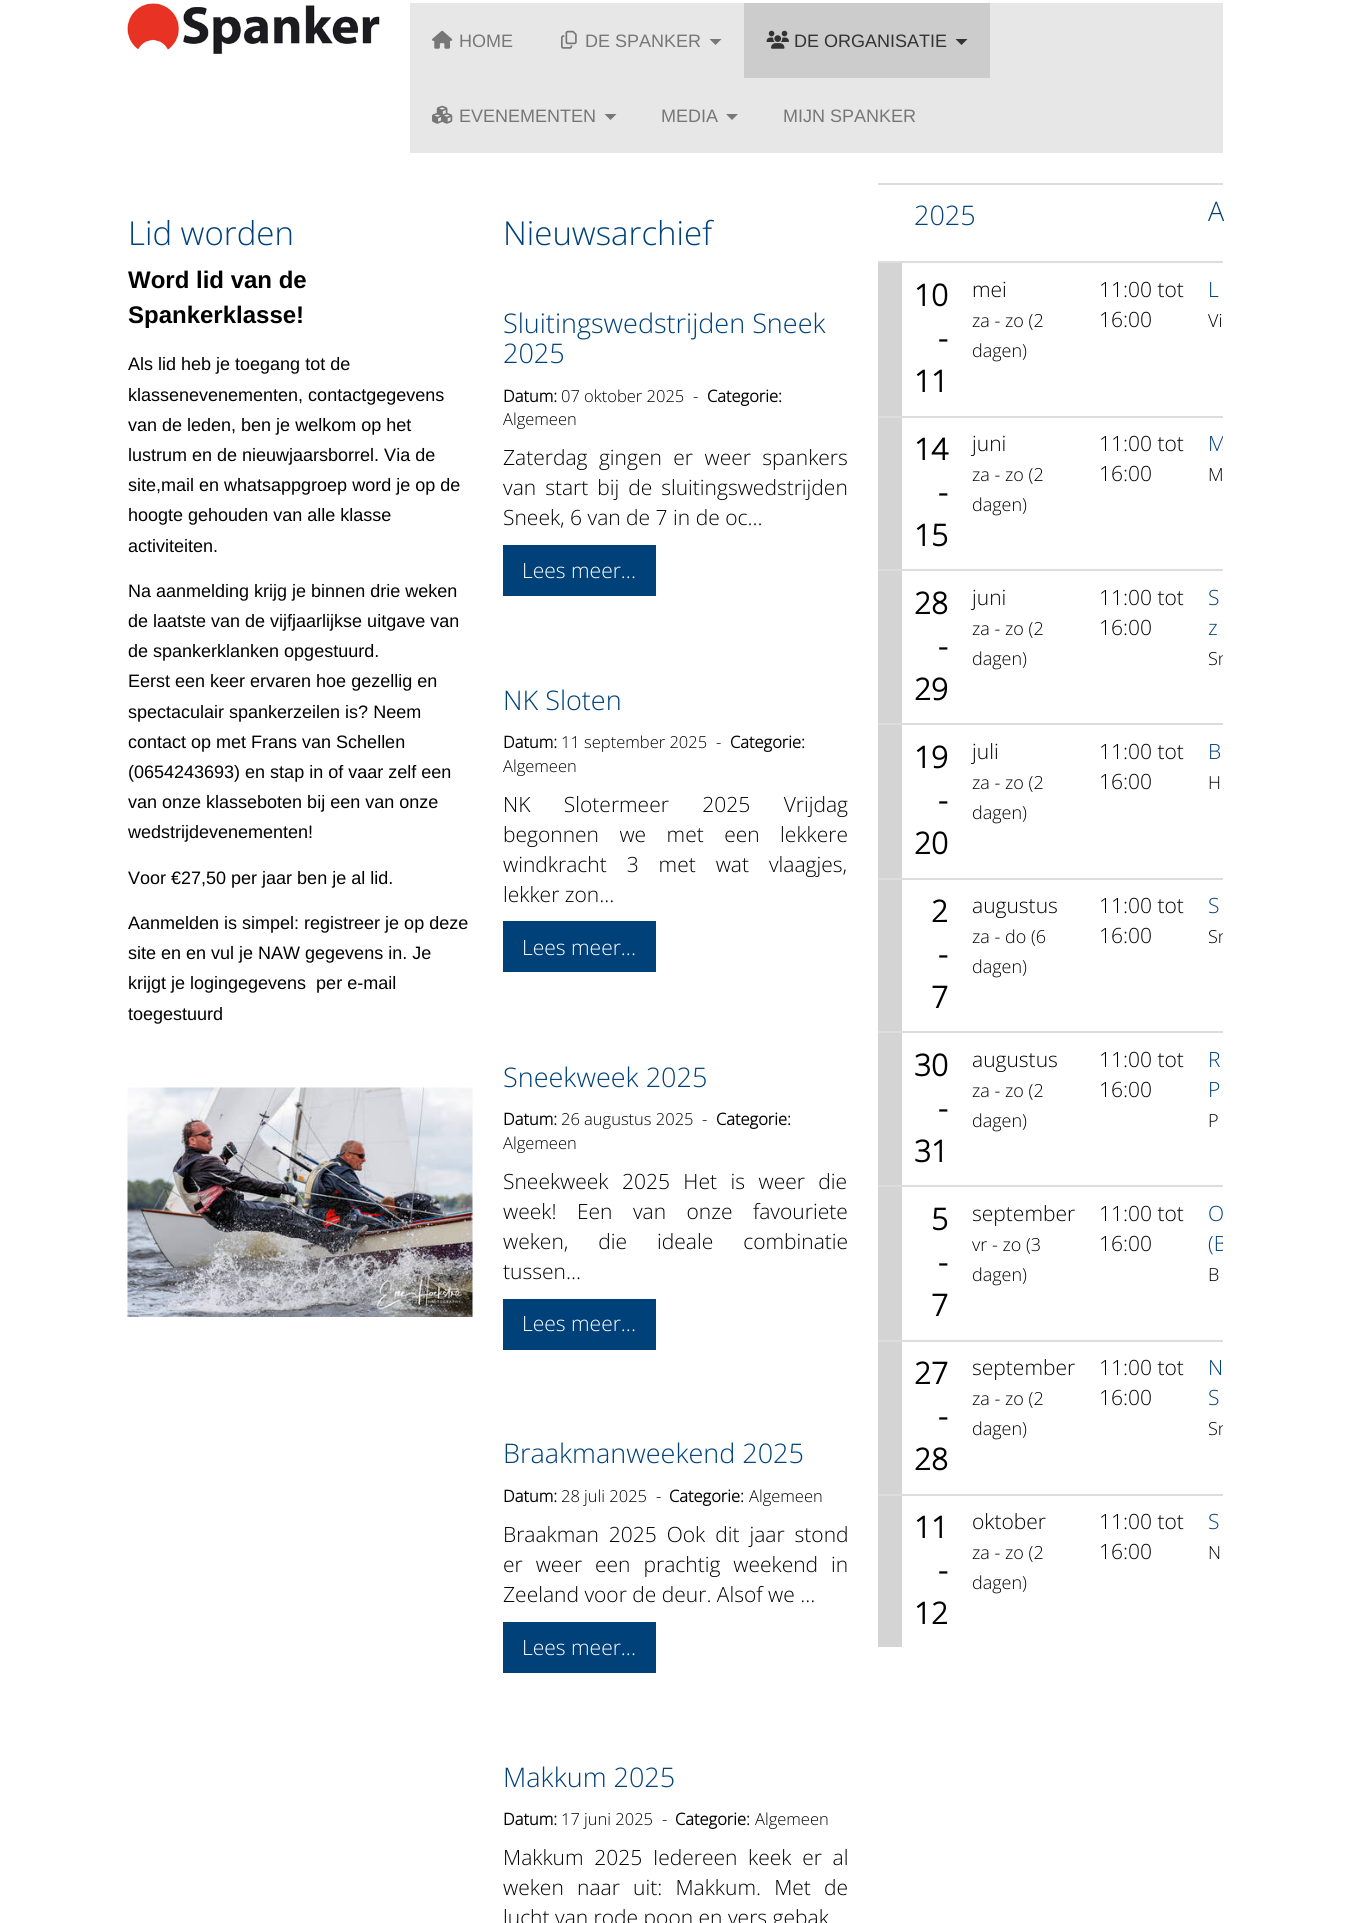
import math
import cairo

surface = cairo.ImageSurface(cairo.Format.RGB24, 1349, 1923)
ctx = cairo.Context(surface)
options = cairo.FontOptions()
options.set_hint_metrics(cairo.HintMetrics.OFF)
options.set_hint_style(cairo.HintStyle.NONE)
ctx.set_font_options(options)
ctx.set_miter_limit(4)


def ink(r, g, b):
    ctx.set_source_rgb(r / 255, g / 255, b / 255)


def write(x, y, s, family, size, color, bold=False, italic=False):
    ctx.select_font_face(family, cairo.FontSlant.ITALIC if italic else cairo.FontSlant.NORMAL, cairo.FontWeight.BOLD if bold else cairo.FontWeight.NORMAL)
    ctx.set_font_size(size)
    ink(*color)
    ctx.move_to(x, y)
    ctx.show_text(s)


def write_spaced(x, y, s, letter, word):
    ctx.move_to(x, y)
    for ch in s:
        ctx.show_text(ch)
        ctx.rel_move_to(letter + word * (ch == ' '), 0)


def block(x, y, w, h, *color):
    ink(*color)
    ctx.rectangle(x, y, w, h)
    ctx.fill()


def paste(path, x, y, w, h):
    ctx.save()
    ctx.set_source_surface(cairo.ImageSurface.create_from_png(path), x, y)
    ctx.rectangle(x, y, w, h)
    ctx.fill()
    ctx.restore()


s1 = dict(family="Liberation Sans", size=18, color=(119, 119, 119))
s2 = dict(family="Liberation Sans", size=18, color=(51, 51, 51))
s3 = dict(family="Open Sans Light", size=33, color=(0, 65, 122))
s4 = dict(family="Liberation Sans", size=24, color=(0, 0, 0), bold=True)
s5 = dict(family="Liberation Sans", size=18, color=(0, 0, 0))
s6 = dict(family="Open Sans Light", size=27, color=(0, 65, 122))
s7 = dict(family="Open Sans", size=16.5, color=(0, 0, 0), bold=True)
s8 = dict(family="Open Sans Light", size=16.5, color=(0, 0, 0))
s9 = dict(family="Open Sans Light", size=21, color=(0, 0, 0))
s10 = dict(family="Open Sans Light", size=21, color=(255, 255, 255))
s11 = dict(family="Open Sans", size=30, color=(0, 0, 0), bold=True)
s12 = dict(family="Open Sans Light", size=18, color=(0, 0, 0))
s13 = dict(family="Open Sans Light", size=21, color=(0, 65, 122))

ink(255, 255, 255)
ctx.paint()
paste("pic1.png", 127, 3, 253, 51)
block(410, 3, 813, 150, 231, 231, 231)
paste("pic2.png", 432, 30, 21, 19)
write(459, 47, "HOME", **s1)
paste("pic3.png", 561, 30, 16, 19)
write(585, 47, "DE SPANKER", **s1)
ctx.new_path()
ctx.move_to(709.5, 39)
ctx.line_to(721.5, 39)
ctx.line_to(715.5, 45)
ctx.close_path()
ctx.fill()
block(744, 3, 246, 75, 204, 204, 204)
paste("pic4.png", 766, 30, 23, 19)
write(794, 47, "DE ORGANISATIE", **s2)
ctx.new_path()
ctx.move_to(955.5, 39)
ctx.line_to(967.5, 39)
ctx.line_to(961.5, 45)
ctx.close_path()
ctx.fill()
paste("pic5.png", 432, 105, 21, 19)
write(459, 122, "EVENEMENTEN", **s1)
ctx.new_path()
ctx.move_to(604.5, 114)
ctx.line_to(616.5, 114)
ctx.line_to(610.5, 120)
ctx.close_path()
ctx.fill()
write(661, 122, "MEDIA", **s1)
ctx.new_path()
ctx.move_to(726, 114)
ctx.line_to(738, 114)
ctx.line_to(732, 120)
ctx.close_path()
ctx.fill()
write(783, 122, "MIJN SPANKER", **s1)
write(128, 245, "Lid worden", **s3)
write(128, 288, "Word lid van de", **s4)
write(128, 323, "Spankerklasse!", **s4)
write(128, 370, "Als lid heb je toegang tot de", **s5)
write(128, 401, "klassenevenementen, contactgegevens", **s5)
write(128, 431, "van de leden, ben je welkom op het", **s5)
write(128, 461, "lustrum en de nieuwjaarsborrel. Via de", **s5)
write(128, 491, "site,mail en whatsappgroep word je op de", **s5)
write(128, 521, "hoogte gehouden van alle klasse", **s5)
write(128, 552, "activiteiten.", **s5)
write(128, 597, "Na aanmelding krijg je binnen drie weken", **s5)
write(128, 627, "de laatste van de vijfjaarlijkse uitgave van", **s5)
write(128, 657, "de spankerklanken opgestuurd.", **s5)
write(128, 687, "Eerst een keer ervaren hoe gezellig en", **s5)
write(128, 718, "spectaculair spankerzeilen is? Neem", **s5)
write(128, 748, "contact op met Frans van Schellen", **s5)
write(128, 778, "(0654243693) en stap in of vaar zelf een", **s5)
write(128, 808, "van onze klasseboten bij een van onze", **s5)
write(128, 838, "wedstrijdevenementen!", **s5)
write(128, 884, "Voor €27,50 per jaar ben je al lid.", **s5)
write(128, 929, "Aanmelden is simpel: registreer je op deze", **s5)
write(128, 959, "site en en vul je NAW gegevens in. Je", **s5)
write(128, 989, "krijgt je logingegevens  per e-mail", **s5)
write(128, 1020, "toegestuurd", **s5)
paste("pic6.png", 127, 1087, 346, 230)
write(503, 245, "Nieuwsarchief", **s3)
write(503, 333, "Sluitingswedstrijden Sneek", **s6)
write(503, 363, "2025", **s6)
write(503, 402, "Datum:", **s7)
write(561, 402, "07 oktober 2025", **s8)
write(693, 402, "-", **s8)
write(707, 402, "Categorie:", **s7)
write(503, 425, "Algemeen", **s8)
ctx.set_font_size(21)
write_spaced(503, 465, "Zaterdag gingen er weer spankers", 0, 6)
write_spaced(503, 495, "van start bij de sluitingswedstrijden", 0, 3.5)
write(503, 525, "Sneek, 6 van de 7 in de oc...", **s9)
block(503, 545, 153, 51, 0, 65, 122)
write(522, 578, "Lees meer...", **s10)
write(503, 710, "NK Sloten", **s6)
write(503, 748, "Datum:", **s7)
write(561, 748, "11 september 2025", **s8)
write(716, 748, "-", **s8)
write(730, 748, "Categorie:", **s7)
write(503, 772, "Algemeen", **s8)
ctx.set_font_size(21)
write_spaced(503, 812, "NK Slotermeer 2025 Vrijdag", 0, 28)
write_spaced(503, 842, "begonnen we met een lekkere", 0, 15)
write_spaced(503, 872, "windkracht 3 met wat vlaagjes,", 0, 14.5)
write(503, 902, "lekker zon...", **s9)
block(503, 921, 153, 51, 0, 65, 122)
write(522, 955, "Lees meer...", **s10)
write(503, 1087, "Sneekweek 2025", **s6)
write(503, 1125, "Datum:", **s7)
write(561, 1125, "26 augustus 2025", **s8)
write(702, 1125, "-", **s8)
write(716, 1125, "Categorie:", **s7)
write(503, 1149, "Algemeen", **s8)
ctx.set_font_size(21)
write_spaced(503, 1189, "Sneekweek 2025 Het is weer die", 0, 8)
write_spaced(503, 1219, "week! Een van onze favouriete", 0, 15)
write_spaced(503, 1249, "weken, die ideale combinatie", 0, 24.5)
write(503, 1279, "tussen...", **s9)
block(503, 1299, 153, 51, 0, 65, 122)
write(522, 1331, "Lees meer...", **s10)
write(503, 1463, "Braakmanweekend 2025", **s6)
write(503, 1502, "Datum:", **s7)
write(561, 1502, "28 juli 2025", **s8)
write(656, 1502, "-", **s8)
write(669, 1502, "Categorie:", **s7)
write(749, 1502, "Algemeen", **s8)
ctx.set_font_size(21)
write_spaced(503, 1542, "Braakman 2025 Ook dit jaar stond", 0, 4.5)
write_spaced(503, 1572, "er weer een prachtig weekend in", 0, 7.5)
write(503, 1602, "Zeeland voor de deur. Alsof we ...", **s9)
block(503, 1622, 153, 51, 0, 65, 122)
write(522, 1655, "Lees meer...", **s10)
write(503, 1787, "Makkum 2025", **s6)
write(503, 1825, "Datum:", **s7)
write(561, 1825, "17 juni 2025", **s8)
write(662, 1825, "-", **s8)
write(675, 1825, "Categorie:", **s7)
write(755, 1825, "Algemeen", **s8)
ctx.set_font_size(21)
write_spaced(503, 1865, "Makkum 2025 Iedereen keek er al", 0, 5.25)
write_spaced(503, 1895, "weken naar uit: Makkum. Met de", 0, 7.75)
write(503, 1925, "lucht van rode poon en vers gebak", **s9)
write(914, 225, "2025", **s6)
block(878, 183, 345, 2, 221, 221, 221)
write(1208, 221, "A", **s6)
block(878, 263, 24, 153, 212, 212, 212)
write(914, 306, "10", **s11)
write(938, 349, "-", **s11)
write(914, 392, "11", **s11)
write(972, 297, "mei", **s9)
write(972, 327, "za - zo (2", **s12)
write(972, 357, "dagen)", **s12)
write(1099, 297, "11:00 tot", **s9)
write(1099, 327, "16:00", **s9)
block(878, 261, 345, 2, 221, 221, 221)
write(1208, 297, "L", **s13)
write(1208, 327, "Vi", **s12)
block(878, 418, 24, 151, 212, 212, 212)
write(914, 460, "14", **s11)
write(938, 503, "-", **s11)
write(914, 546, "15", **s11)
write(972, 451, "juni", **s9)
write(972, 481, "za - zo (2", **s12)
write(972, 511, "dagen)", **s12)
write(1099, 451, "11:00 tot", **s9)
write(1099, 481, "16:00", **s9)
block(878, 416, 345, 2, 221, 221, 221)
ctx.save()
ctx.rectangle(878, 183, 345, 1494)
ctx.clip()
write(1208, 451, "M", **s13)
ctx.restore()
write(1208, 481, "M", **s12)
block(878, 571, 24, 152, 212, 212, 212)
write(914, 614, "28", **s11)
write(938, 657, "-", **s11)
write(914, 700, "29", **s11)
write(972, 605, "juni", **s9)
write(972, 635, "za - zo (2", **s12)
write(972, 665, "dagen)", **s12)
write(1099, 605, "11:00 tot", **s9)
write(1099, 635, "16:00", **s9)
block(878, 569, 345, 2, 221, 221, 221)
write(1208, 605, "S", **s13)
write(1208, 635, "z", **s13)
ctx.save()
ctx.rectangle(878, 183, 345, 1494)
ctx.clip()
write(1208, 665, "Sn", **s12)
ctx.restore()
block(878, 725, 24, 153, 212, 212, 212)
write(914, 768, "19", **s11)
write(938, 811, "-", **s11)
write(914, 854, "20", **s11)
write(972, 759, "juli", **s9)
write(972, 789, "za - zo (2", **s12)
write(972, 819, "dagen)", **s12)
write(1099, 759, "11:00 tot", **s9)
write(1099, 789, "16:00", **s9)
block(878, 723, 345, 2, 221, 221, 221)
write(1208, 759, "B", **s13)
write(1208, 789, "H", **s12)
block(878, 880, 24, 151, 212, 212, 212)
write(931, 922, "2", **s11)
write(938, 965, "-", **s11)
write(931, 1008, "7", **s11)
write(972, 913, "augustus", **s9)
write(972, 943, "za - do (6", **s12)
write(972, 973, "dagen)", **s12)
write(1099, 913, "11:00 tot", **s9)
write(1099, 943, "16:00", **s9)
block(878, 878, 345, 2, 221, 221, 221)
write(1208, 913, "S", **s13)
ctx.save()
ctx.rectangle(878, 183, 345, 1494)
ctx.clip()
write(1208, 943, "Sn", **s12)
ctx.restore()
block(878, 1033, 24, 152, 212, 212, 212)
write(914, 1076, "30", **s11)
write(938, 1119, "-", **s11)
write(914, 1162, "31", **s11)
write(972, 1067, "augustus", **s9)
write(972, 1097, "za - zo (2", **s12)
write(972, 1127, "dagen)", **s12)
write(1099, 1067, "11:00 tot", **s9)
write(1099, 1097, "16:00", **s9)
block(878, 1031, 345, 2, 221, 221, 221)
write(1208, 1067, "R", **s13)
write(1208, 1097, "P", **s13)
write(1208, 1127, "P", **s12)
block(878, 1187, 24, 153, 212, 212, 212)
write(931, 1230, "5", **s11)
write(938, 1273, "-", **s11)
write(931, 1316, "7", **s11)
write(972, 1221, "september", **s9)
write(972, 1251, "vr - zo (3", **s12)
write(972, 1281, "dagen)", **s12)
write(1099, 1221, "11:00 tot", **s9)
write(1099, 1251, "16:00", **s9)
block(878, 1185, 345, 2, 221, 221, 221)
write(1208, 1221, "O", **s13)
ctx.save()
ctx.rectangle(878, 183, 345, 1494)
ctx.clip()
write(1208, 1251, "(B", **s13)
ctx.restore()
write(1208, 1281, "B", **s12)
block(878, 1342, 24, 152, 212, 212, 212)
write(914, 1384, "27", **s11)
write(938, 1427, "-", **s11)
write(914, 1470, "28", **s11)
write(972, 1375, "september", **s9)
write(972, 1405, "za - zo (2", **s12)
write(972, 1435, "dagen)", **s12)
write(1099, 1375, "11:00 tot", **s9)
write(1099, 1405, "16:00", **s9)
block(878, 1340, 345, 2, 221, 221, 221)
write(1208, 1375, "N", **s13)
write(1208, 1405, "S", **s13)
ctx.save()
ctx.rectangle(878, 183, 345, 1494)
ctx.clip()
write(1208, 1435, "Sn", **s12)
ctx.restore()
block(878, 1496, 24, 151, 212, 212, 212)
write(914, 1538, "11", **s11)
write(938, 1581, "-", **s11)
write(914, 1624, "12", **s11)
write(972, 1529, "oktober", **s9)
write(972, 1559, "za - zo (2", **s12)
write(972, 1589, "dagen)", **s12)
write(1099, 1529, "11:00 tot", **s9)
write(1099, 1559, "16:00", **s9)
block(878, 1494, 345, 2, 221, 221, 221)
write(1208, 1529, "S", **s13)
write(1208, 1559, "N", **s12)
surface.write_to_png("screenshot.png")
